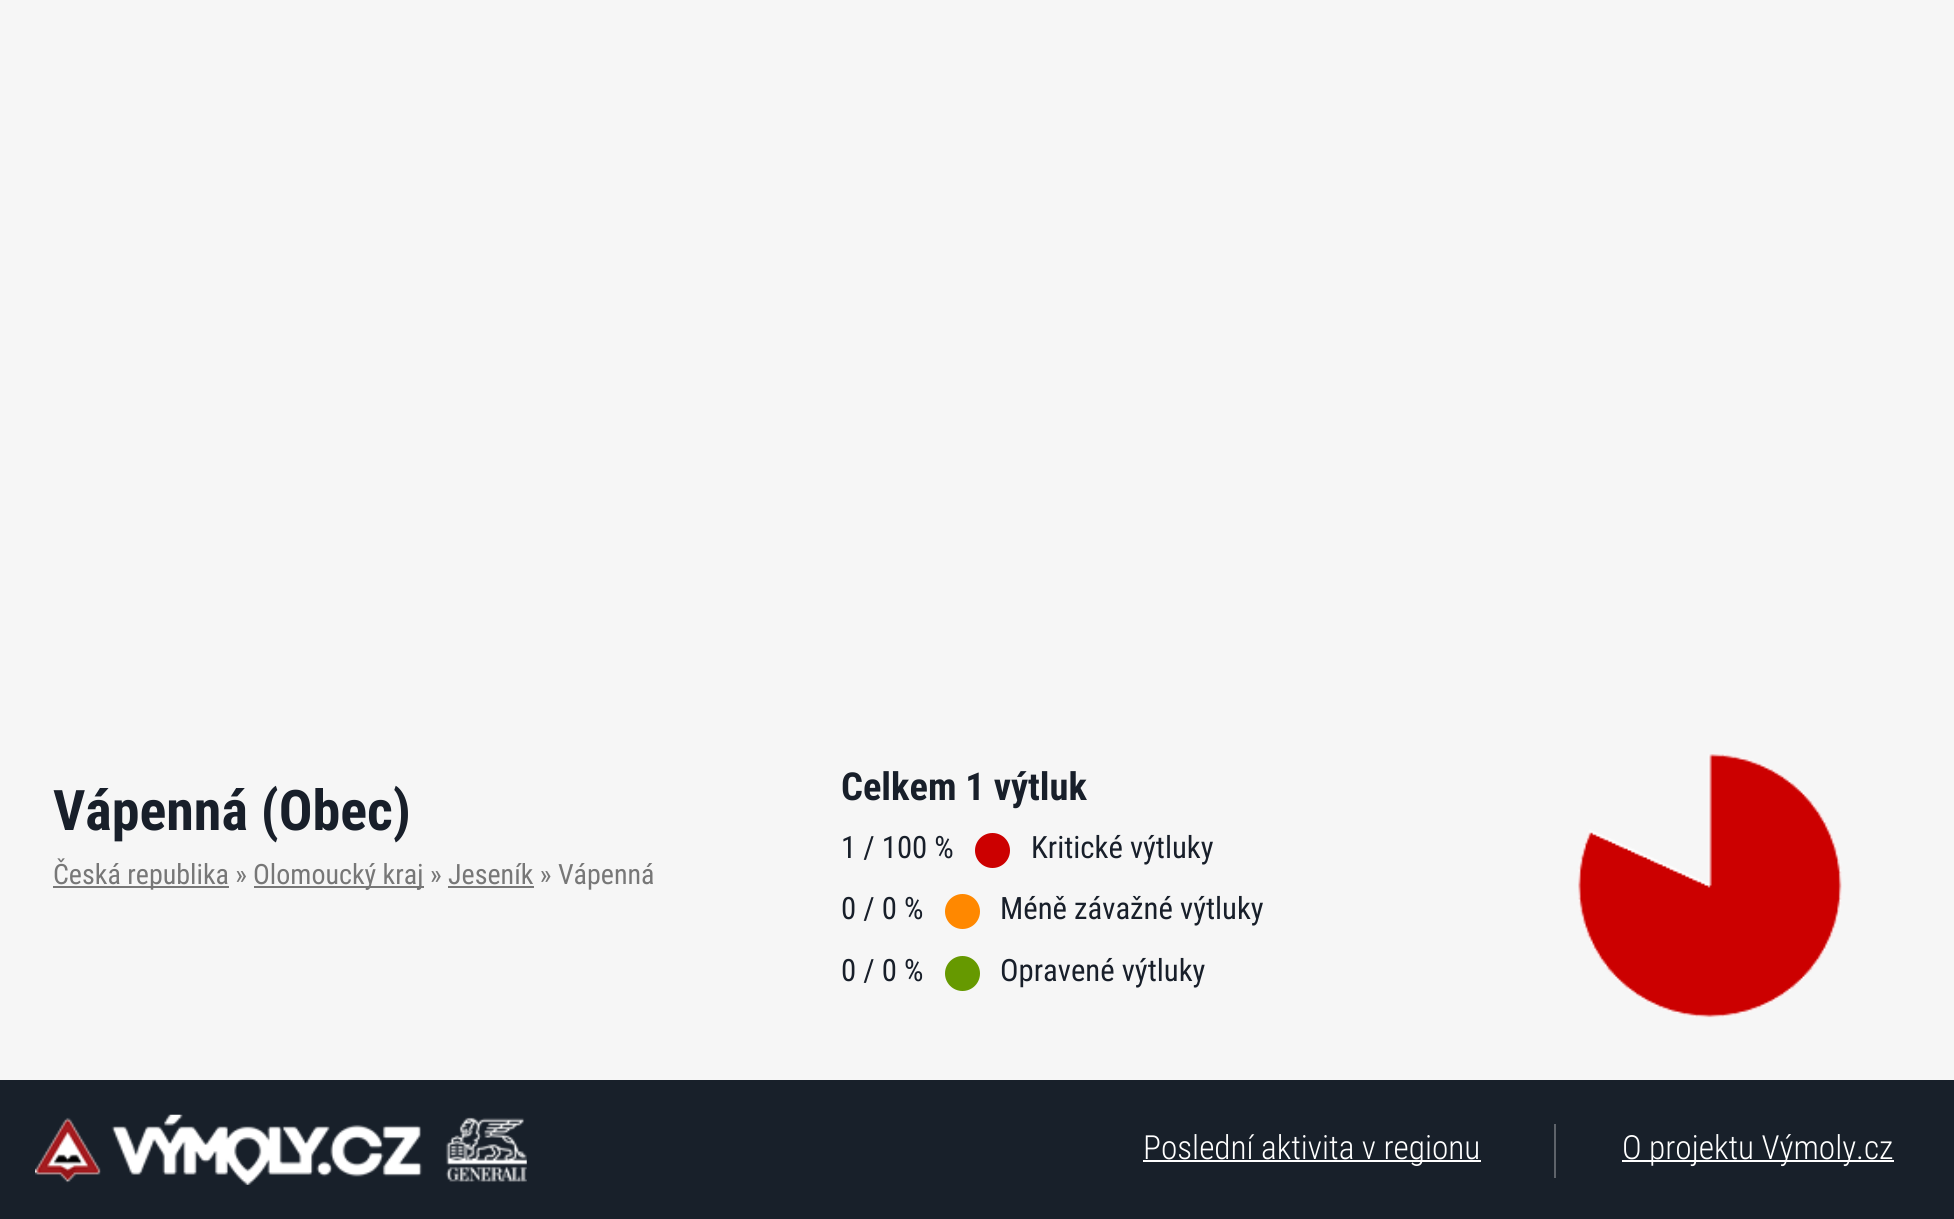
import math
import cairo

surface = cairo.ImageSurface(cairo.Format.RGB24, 1954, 1219)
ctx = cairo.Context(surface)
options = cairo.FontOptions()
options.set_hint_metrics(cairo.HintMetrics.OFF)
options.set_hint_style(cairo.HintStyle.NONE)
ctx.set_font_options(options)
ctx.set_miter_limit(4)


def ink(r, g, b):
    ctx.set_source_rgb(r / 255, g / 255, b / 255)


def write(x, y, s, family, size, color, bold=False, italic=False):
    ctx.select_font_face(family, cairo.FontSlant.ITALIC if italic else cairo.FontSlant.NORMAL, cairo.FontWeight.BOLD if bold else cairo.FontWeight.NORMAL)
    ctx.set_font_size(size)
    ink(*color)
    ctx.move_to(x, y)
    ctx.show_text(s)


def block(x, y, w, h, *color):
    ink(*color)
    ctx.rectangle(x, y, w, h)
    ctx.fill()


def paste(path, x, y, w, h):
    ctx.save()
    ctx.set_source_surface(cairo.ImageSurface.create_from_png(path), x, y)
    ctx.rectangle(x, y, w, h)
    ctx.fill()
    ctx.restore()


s1 = dict(family="Roboto Condensed", size=56, color=(24, 31, 42), bold=True)
s2 = dict(family="Roboto Condensed", size=28, color=(119, 119, 119))
s3 = dict(family="Roboto Condensed", size=38.5, color=(24, 31, 42), bold=True)
s4 = dict(family="Roboto Condensed", size=30.75, color=(24, 31, 42))
s5 = dict(family="Roboto Condensed Light", size=33.25, color=(255, 255, 255))

ink(246, 246, 246)
ctx.paint()
write(53, 830, "Vápenná (Obec)", **s1)
block(53, 886, 176, 2, 119, 119, 119)
write(53, 884, "Česká republika »", **s2)
block(254, 886, 170, 2, 119, 119, 119)
write(253, 884, "Olomoucký kraj » Jeseník » Vápenná", **s2)
block(448, 886, 86, 2, 119, 119, 119)
write(841, 800, "Celkem 1 výtluk", **s3)
write(841, 858, "1 / 100 %", **s4)
ink(204, 0, 0)
ctx.new_path()
ctx.arc(992.5, 850.5, 17.5, 0, 2 * math.pi)
ctx.fill()
write(1031, 858, "Kritické výtluky", **s4)
write(841, 919, "0 / 0 %", **s4)
ink(255, 136, 0)
ctx.new_path()
ctx.arc(962.5, 911.5, 17.5, 0, 2 * math.pi)
ctx.fill()
write(1000, 919, "Méně závažné výtluky", **s4)
write(841, 981, "0 / 0 %", **s4)
ink(102, 153, 0)
ctx.new_path()
ctx.arc(962.5, 973.5, 17.5, 0, 2 * math.pi)
ctx.fill()
write(1000, 981, "Opravené výtluky", **s4)
paste("pic1.png", 1578, 754, 264, 264)
block(0, 1080, 1954, 139, 24, 32, 42)
paste("pic2.png", 35, 1114, 492, 71)
block(1143, 1160, 338, 2, 255, 255, 255)
write(1143, 1159, "Poslední aktivita v regionu", **s5)
block(1554, 1124, 2, 54, 94, 99, 106)
block(1622, 1160, 272, 2, 255, 255, 255)
write(1622, 1159, "O projektu Výmoly.cz", **s5)
surface.write_to_png("screenshot.png")
